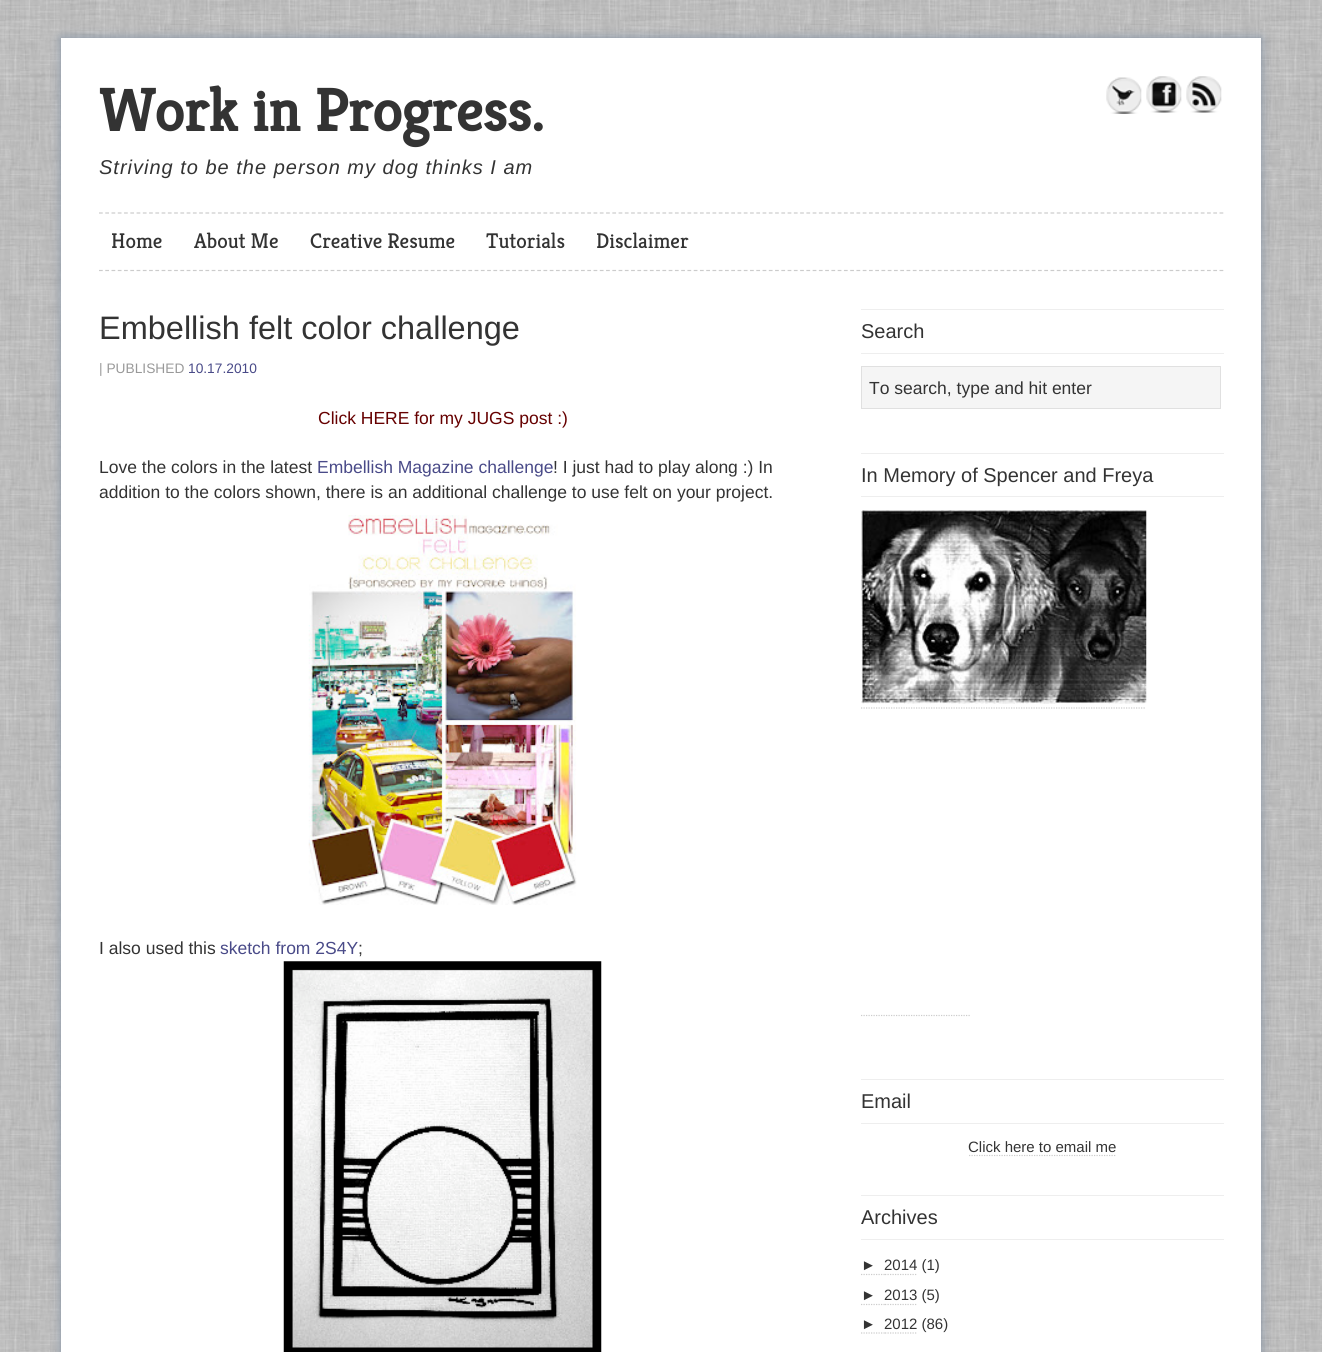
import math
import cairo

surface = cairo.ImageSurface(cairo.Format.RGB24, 1322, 1352)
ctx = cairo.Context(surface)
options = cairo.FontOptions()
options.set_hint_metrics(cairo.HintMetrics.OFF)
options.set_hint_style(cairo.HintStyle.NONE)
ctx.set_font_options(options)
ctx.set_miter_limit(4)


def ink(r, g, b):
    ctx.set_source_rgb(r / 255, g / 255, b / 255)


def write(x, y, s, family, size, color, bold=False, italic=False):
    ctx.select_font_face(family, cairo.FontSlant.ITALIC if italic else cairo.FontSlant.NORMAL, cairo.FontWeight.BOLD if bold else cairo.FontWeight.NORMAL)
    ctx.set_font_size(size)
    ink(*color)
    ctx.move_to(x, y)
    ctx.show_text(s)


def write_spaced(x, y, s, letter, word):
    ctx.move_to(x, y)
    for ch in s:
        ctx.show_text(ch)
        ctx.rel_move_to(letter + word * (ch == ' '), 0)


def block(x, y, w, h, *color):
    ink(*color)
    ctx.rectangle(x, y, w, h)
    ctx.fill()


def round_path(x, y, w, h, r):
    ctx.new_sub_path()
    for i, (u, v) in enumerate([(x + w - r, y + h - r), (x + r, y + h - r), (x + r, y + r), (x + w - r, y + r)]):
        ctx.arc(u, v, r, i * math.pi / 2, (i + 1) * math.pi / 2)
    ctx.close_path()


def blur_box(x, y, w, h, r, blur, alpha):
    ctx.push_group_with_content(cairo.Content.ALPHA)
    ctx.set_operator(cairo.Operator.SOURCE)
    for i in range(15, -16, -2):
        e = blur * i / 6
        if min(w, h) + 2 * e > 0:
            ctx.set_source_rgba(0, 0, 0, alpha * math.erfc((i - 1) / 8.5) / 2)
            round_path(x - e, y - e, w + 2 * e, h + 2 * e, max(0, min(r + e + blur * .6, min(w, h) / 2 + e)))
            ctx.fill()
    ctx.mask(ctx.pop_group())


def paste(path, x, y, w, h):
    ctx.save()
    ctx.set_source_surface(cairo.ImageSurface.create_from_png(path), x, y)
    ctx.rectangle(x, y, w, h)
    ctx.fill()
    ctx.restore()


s1 = dict(family="Kreon", size=60, color=(51, 51, 51), bold=True)
s2 = dict(family="Kreon Light", size=21.25, color=(51, 51, 51))
s3 = dict(family="Liberation Sans", size=32.5, color=(51, 51, 51))
s4 = dict(family="Liberation Sans", size=13.75, color=(153, 153, 153))
s5 = dict(family="Liberation Sans", size=13.75, color=(73, 74, 136))
s6 = dict(family="Liberation Sans", size=17.5, color=(102, 0, 0))
s7 = dict(family="Liberation Sans", size=17.5, color=(51, 51, 51))
s8 = dict(family="Liberation Sans", size=17.5, color=(73, 74, 136))
s9 = dict(family="Liberation Sans", size=20, color=(51, 51, 51))
s10 = dict(family="Liberation Sans", size=15, color=(51, 51, 51))

ink(255, 255, 255)
ctx.paint()
paste("pic1.png", 0, 0, 1322, 1352)
ink(132, 147, 166)
blur_box(61, 38, 1200, 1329, 0, 5, 1)
block(61, 38, 1200, 1314, 255, 255, 255)
write(99, 131, "Work in Progress.", **s1)
ctx.select_font_face("Liberation Sans", cairo.FontSlant.ITALIC)
ctx.set_font_size(20)
write_spaced(99, 174, "Striving to be the person my dog thinks I am", 1, 0)
paste("pic2.png", 1106, 77, 36, 37)
paste("pic3.png", 1146, 76, 36, 37)
paste("pic4.png", 1186, 76, 36, 37)
ctx.new_path()
ctx.move_to(99, 213)
ctx.line_to(1224, 213)
ink(204, 204, 204)
ctx.set_line_width(1.2)
ctx.set_dash([3.75, 2.51])
ctx.stroke()
ctx.new_path()
ctx.move_to(99, 270.5)
ctx.line_to(1224, 270.5)
ctx.stroke()
write(111, 248, "Home", **s2)
write(194, 248, "About Me", **s2)
write(310, 248, "Creative Resume", **s2)
write(486, 248, "Tutorials", **s2)
write(596, 248, "Disclaimer", **s2)
write(99, 339, "Embellish felt color challenge", **s3)
write(99, 373, "| PUBLISHED", **s4)
write(188, 373, "10.17.2010", **s5)
write(318, 424, "Click HERE for my JUGS post :)", **s6)
write(99, 473, "Love the colors in the latest", **s7)
write(317, 473, "Embellish Magazine challenge", **s8)
write(553, 473, "! I just had to play along :) In", **s7)
write(99, 498, "addition to the colors shown, there is an additional challenge to use felt on your project.", **s7)
paste("pic5.png", 308, 515, 269, 390)
write(99, 954, "I also used this", **s7)
write(220, 954, "sketch from 2S4Y", **s8)
write(358, 954, ";", **s7)
paste("pic6.png", 283, 961, 319, 391)
block(861, 309, 363, 1, 238, 238, 238)
block(861, 353, 363, 1, 238, 238, 238)
write(861, 338, "Search", **s9)
ink(245, 245, 245)
ctx.rectangle(861.5, 366.5, 359, 42)
ctx.fill_preserve()
ink(224, 224, 224)
ctx.set_line_width(1)
ctx.set_dash([])
ctx.stroke()
write(869, 394, "To search, type and hit enter", **s7)
block(861, 453, 363, 1, 238, 238, 238)
block(861, 496, 363, 1, 238, 238, 238)
write(861, 482, "In Memory of Spencer and Freya", **s9)
paste("pic7.png", 861, 510, 286, 194)
ctx.new_path()
ctx.move_to(861, 708)
ctx.line_to(1146, 708)
ink(204, 204, 204)
ctx.set_line_width(1.2)
ctx.set_dash([1.25, 1.25])
ctx.stroke()
ctx.new_path()
ctx.move_to(861, 1015.5)
ctx.line_to(971, 1015.5)
ctx.stroke()
block(861, 1079, 363, 1, 238, 238, 238)
block(861, 1123, 363, 1, 238, 238, 238)
write(861, 1108, "Email", **s9)
write(968, 1152, "Click here to email me", **s10)
ctx.new_path()
ctx.move_to(969, 1155.5)
ctx.line_to(1116, 1155.5)
ink(204, 204, 204)
ctx.stroke()
block(861, 1195, 363, 1, 238, 238, 238)
block(861, 1239, 363, 1, 238, 238, 238)
write(861, 1224, "Archives", **s9)
write(861, 1270, "►", **s10)
ctx.new_path()
ctx.move_to(861, 1274.5)
ctx.line_to(885, 1274.5)
ink(204, 204, 204)
ctx.stroke()
ctx.new_path()
ctx.move_to(885, 1274.5)
ctx.line_to(917.5, 1274.5)
ctx.stroke()
write(884, 1270, "2014 (1)", **s10)
write(861, 1300, "►", **s10)
ctx.new_path()
ctx.move_to(861, 1304.5)
ctx.line_to(885, 1304.5)
ink(204, 204, 204)
ctx.stroke()
ctx.new_path()
ctx.move_to(885, 1304.5)
ctx.line_to(917.5, 1304.5)
ctx.stroke()
write(884, 1300, "2013 (5)", **s10)
write(861, 1329, "►", **s10)
ctx.new_path()
ctx.move_to(861, 1333)
ctx.line_to(885, 1333)
ink(204, 204, 204)
ctx.stroke()
ctx.new_path()
ctx.move_to(885, 1333)
ctx.line_to(917.5, 1333)
ctx.stroke()
write(884, 1329, "2012 (86)", **s10)
surface.write_to_png("screenshot.png")
